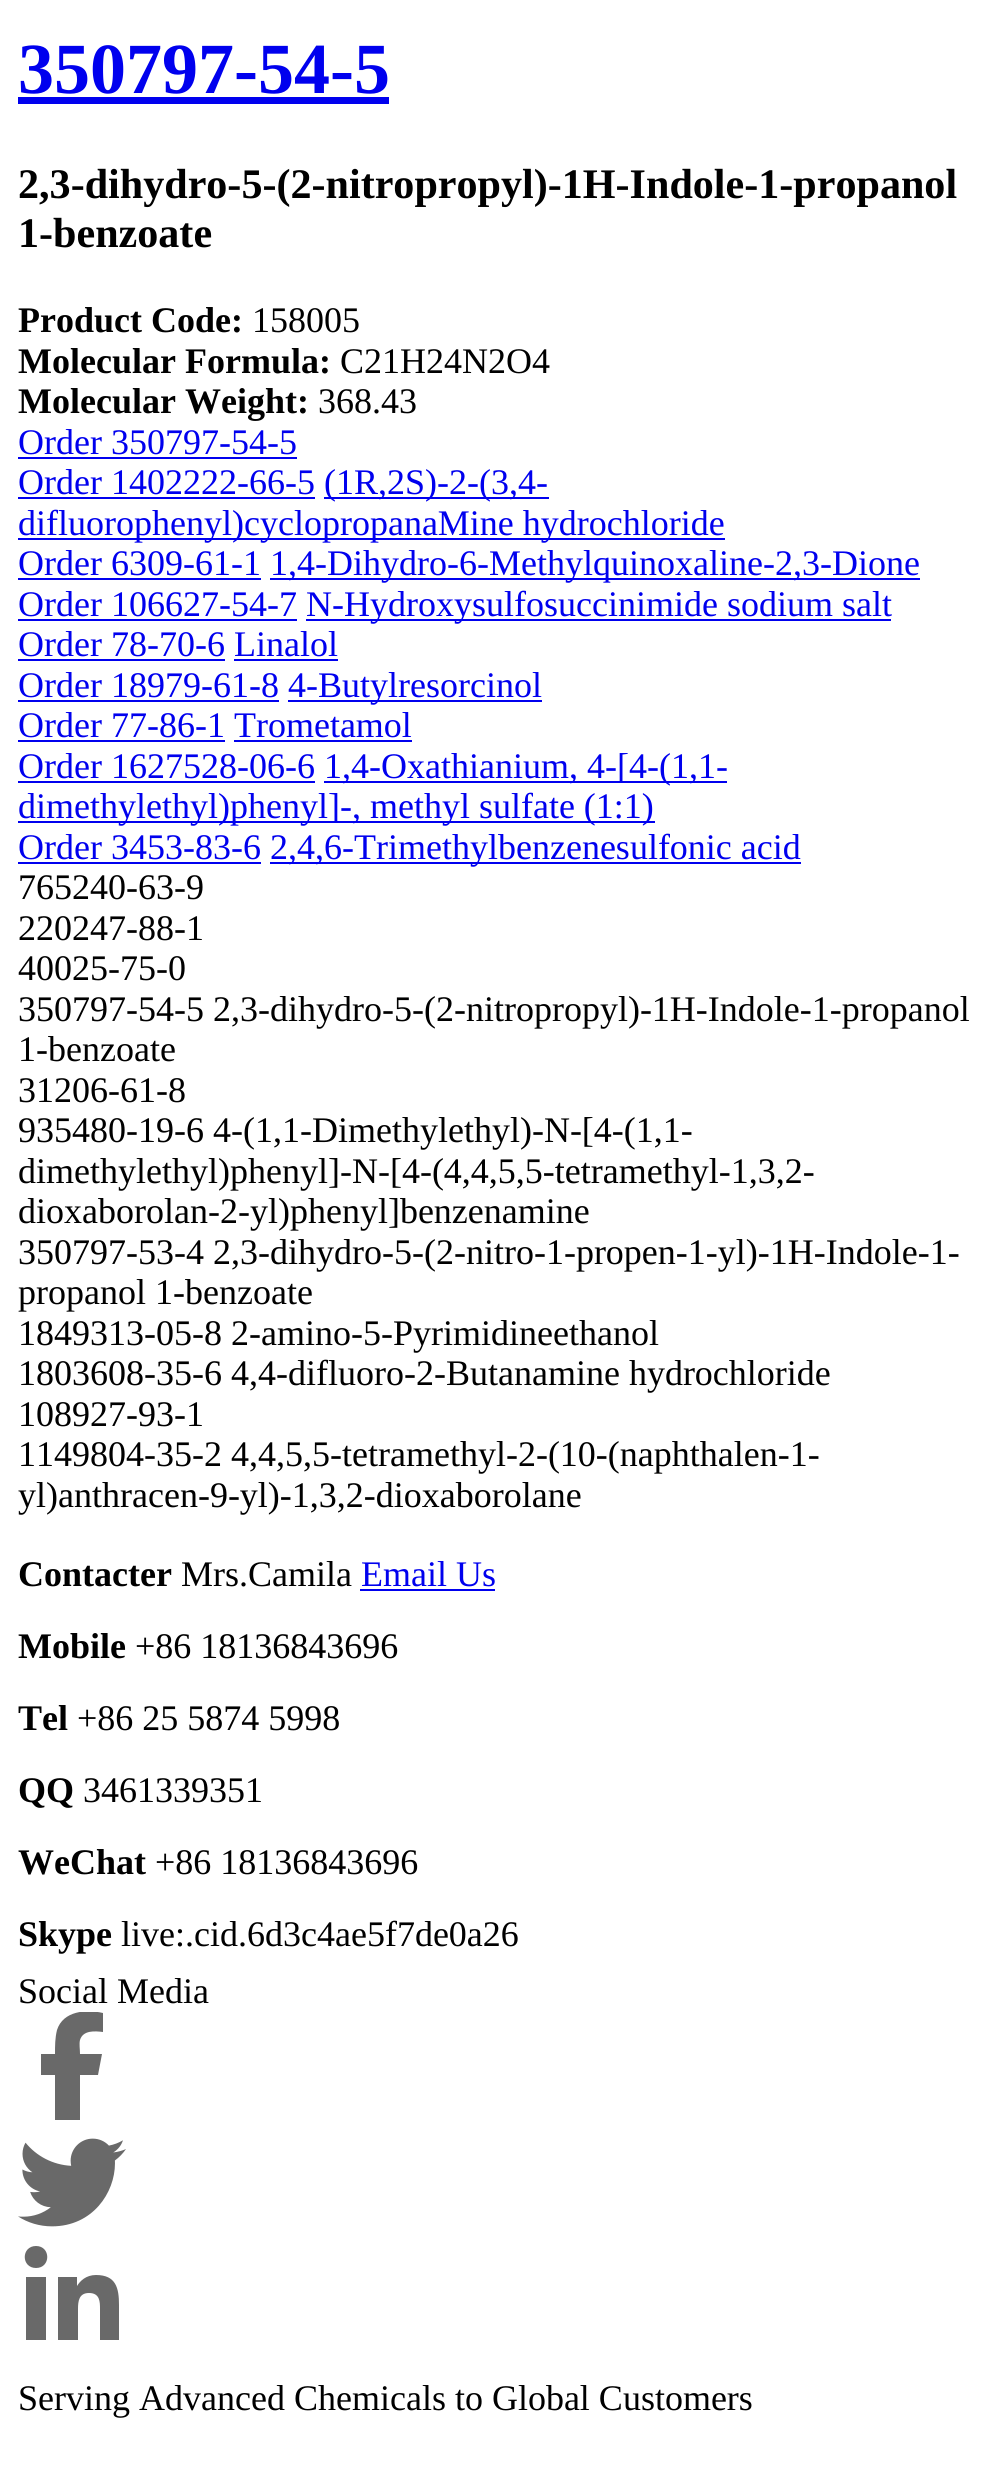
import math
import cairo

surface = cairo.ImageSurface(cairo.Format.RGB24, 989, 2473)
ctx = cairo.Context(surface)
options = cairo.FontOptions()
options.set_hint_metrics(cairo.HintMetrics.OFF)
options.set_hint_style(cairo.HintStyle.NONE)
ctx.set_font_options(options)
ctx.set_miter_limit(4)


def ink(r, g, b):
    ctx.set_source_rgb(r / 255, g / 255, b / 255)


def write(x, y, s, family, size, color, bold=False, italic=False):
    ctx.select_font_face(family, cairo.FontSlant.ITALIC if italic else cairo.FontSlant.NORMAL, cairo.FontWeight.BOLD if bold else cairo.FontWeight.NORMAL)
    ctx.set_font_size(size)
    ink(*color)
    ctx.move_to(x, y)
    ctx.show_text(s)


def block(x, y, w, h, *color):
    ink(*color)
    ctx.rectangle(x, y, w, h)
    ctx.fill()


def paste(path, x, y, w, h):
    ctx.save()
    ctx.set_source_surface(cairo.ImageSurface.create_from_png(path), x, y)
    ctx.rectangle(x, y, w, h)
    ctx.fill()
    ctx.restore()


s1 = dict(family="Liberation Serif", size=72, color=(0, 0, 238), bold=True)
s2 = dict(family="Liberation Serif", size=42.1, color=(0, 0, 0), bold=True)
s3 = dict(family="Liberation Serif", size=36, color=(0, 0, 0), bold=True)
s4 = dict(family="Liberation Serif", size=36, color=(0, 0, 0))
s5 = dict(family="Liberation Serif", size=36, color=(0, 0, 238))

ink(255, 255, 255)
ctx.paint()
write(18, 93, "350797-54-5", **s1)
block(18, 97, 371, 7, 0, 0, 238)
write(18, 198, "2,3-dihydro-5-(2-nitropropyl)-1H-Indole-1-propanol", **s2)
write(18, 247, "1-benzoate", **s2)
write(18, 332, "Product Code:", **s3)
write(252, 332, "158005", **s4)
write(18, 373, "Molecular Formula:", **s3)
write(340, 373, "C21H24N2O4", **s4)
write(18, 413, "Molecular Weight:", **s3)
write(318, 413, "368.43", **s4)
write(18, 454, "Order 350797-54-5", **s5)
block(18, 457, 279, 2, 0, 0, 238)
write(18, 494, "Order 1402222-66-5", **s5)
block(18, 497, 297, 2, 0, 0, 238)
block(324, 497, 225, 2, 0, 0, 238)
write(324, 494, "(1R,2S)-2-(3,4-", **s5)
block(18, 538, 707, 2, 0, 0, 238)
write(18, 535, "difluorophenyl)cyclopropanaMine hydrochloride", **s5)
write(18, 575, "Order 6309-61-1", **s5)
block(18, 578, 243, 2, 0, 0, 238)
block(270, 578, 650, 2, 0, 0, 238)
write(270, 575, "1,4-Dihydro-6-Methylquinoxaline-2,3-Dione", **s5)
write(18, 616, "Order 106627-54-7", **s5)
block(18, 619, 279, 2, 0, 0, 238)
block(306, 619, 585, 2, 0, 0, 238)
write(306, 616, "N-Hydroxysulfosuccinimide sodium salt", **s5)
write(18, 656, "Order 78-70-6 Linalol", **s5)
block(18, 659, 207, 2, 0, 0, 238)
block(234, 659, 104, 2, 0, 0, 238)
write(18, 697, "Order 18979-61-8", **s5)
block(18, 700, 261, 2, 0, 0, 238)
block(288, 700, 254, 2, 0, 0, 238)
write(288, 697, "4-Butylresorcinol", **s5)
write(18, 737, "Order 77-86-1 Trometamol", **s5)
block(18, 740, 207, 2, 0, 0, 238)
block(234, 740, 178, 2, 0, 0, 238)
write(18, 778, "Order 1627528-06-6", **s5)
block(18, 781, 297, 2, 0, 0, 238)
block(324, 781, 403, 2, 0, 0, 238)
write(324, 778, "1,4-Oxathianium, 4-[4-(1,1-", **s5)
block(18, 821, 637, 2, 0, 0, 238)
write(18, 818, "dimethylethyl)phenyl]-, methyl sulfate (1:1)", **s5)
write(18, 859, "Order 3453-83-6", **s5)
block(18, 862, 243, 2, 0, 0, 238)
block(270, 862, 531, 2, 0, 0, 238)
write(270, 859, "2,4,6-Trimethylbenzenesulfonic acid", **s5)
write(18, 899, "765240-63-9", **s4)
write(18, 940, "220247-88-1", **s4)
write(18, 980, "40025-75-0", **s4)
write(18, 1021, "350797-54-5 2,3-dihydro-5-(2-nitropropyl)-1H-Indole-1-propanol", **s4)
write(18, 1061, "1-benzoate", **s4)
write(18, 1102, "31206-61-8", **s4)
write(18, 1142, "935480-19-6 4-(1,1-Dimethylethyl)-N-[4-(1,1-", **s4)
write(18, 1183, "dimethylethyl)phenyl]-N-[4-(4,4,5,5-tetramethyl-1,3,2-", **s4)
write(18, 1223, "dioxaborolan-2-yl)phenyl]benzenamine", **s4)
write(18, 1264, "350797-53-4 2,3-dihydro-5-(2-nitro-1-propen-1-yl)-1H-Indole-1-", **s4)
write(18, 1304, "propanol 1-benzoate", **s4)
write(18, 1345, "1849313-05-8 2-amino-5-Pyrimidineethanol", **s4)
write(18, 1385, "1803608-35-6 4,4-difluoro-2-Butanamine hydrochloride", **s4)
write(18, 1426, "108927-93-1", **s4)
write(18, 1466, "1149804-35-2 4,4,5,5-tetramethyl-2-(10-(naphthalen-1-", **s4)
write(18, 1507, "yl)anthracen-9-yl)-1,3,2-dioxaborolane", **s4)
write(18, 1586, "Contacter", **s3)
write(181, 1586, "Mrs.Camila", **s4)
write(361, 1586, "Email Us", **s5)
block(360, 1589, 135, 2, 0, 0, 238)
write(18, 1658, "Mobile", **s3)
write(135, 1658, "+86 18136843696", **s4)
write(18, 1730, "Tel", **s3)
write(77, 1730, "+86 25 5874 5998", **s4)
write(18, 1802, "QQ", **s3)
write(83, 1802, "3461339351", **s4)
write(18, 1874, "WeChat", **s3)
write(155, 1874, "+86 18136843696", **s4)
write(18, 1946, "Skype", **s3)
write(121, 1946, "live:.cid.6d3c4ae5f7de0a26", **s4)
write(18, 2003, "Social Media", **s4)
ctx.save()
ctx.rectangle(18, 2012, 108, 108)
ctx.clip()
ink(105, 105, 105)
ctx.new_path()
ctx.move_to(55, 2075)
ctx.line_to(55, 2120)
ctx.line_to(80, 2120)
ctx.line_to(80, 2075)
ctx.line_to(98, 2075)
ctx.line_to(102, 2054)
ctx.line_to(80, 2054)
ctx.curve_to(80, 2049, 79, 2044, 80, 2040)
ctx.curve_to(83, 2030, 95, 2031, 103, 2032)
ctx.line_to(103, 2013)
ctx.curve_to(86, 2009, 63, 2011, 57, 2030)
ctx.curve_to(55, 2038, 55, 2046, 55, 2054)
ctx.line_to(41, 2054)
ctx.line_to(41, 2075)
ctx.close_path()
ctx.fill()
ctx.restore()
paste("pic1.png", 18, 2138, 108, 89)
ink(105, 105, 105)
ctx.new_path()
ctx.move_to(46, 2340)
ctx.line_to(26, 2340)
ctx.line_to(26, 2277)
ctx.line_to(46, 2277)
ctx.close_path()
ctx.move_to(36, 2268)
ctx.curve_to(21, 2268, 21, 2246, 36, 2246)
ctx.curve_to(51, 2246, 51, 2268, 36, 2268)
ctx.close_path()
ctx.move_to(119, 2340)
ctx.line_to(100, 2340)
ctx.line_to(100, 2309)
ctx.curve_to(100, 2302, 100, 2293, 89, 2293)
ctx.curve_to(79, 2293, 78, 2301, 78, 2309)
ctx.line_to(78, 2340)
ctx.line_to(58, 2340)
ctx.line_to(58, 2277)
ctx.line_to(77, 2277)
ctx.line_to(77, 2286)
ctx.curve_to(80, 2281, 86, 2275, 96, 2275)
ctx.curve_to(116, 2275, 119, 2288, 119, 2305)
ctx.close_path()
ctx.fill()
write(18, 2410, "Serving Advanced Chemicals to Global Customers", **s4)
surface.write_to_png("screenshot.png")
